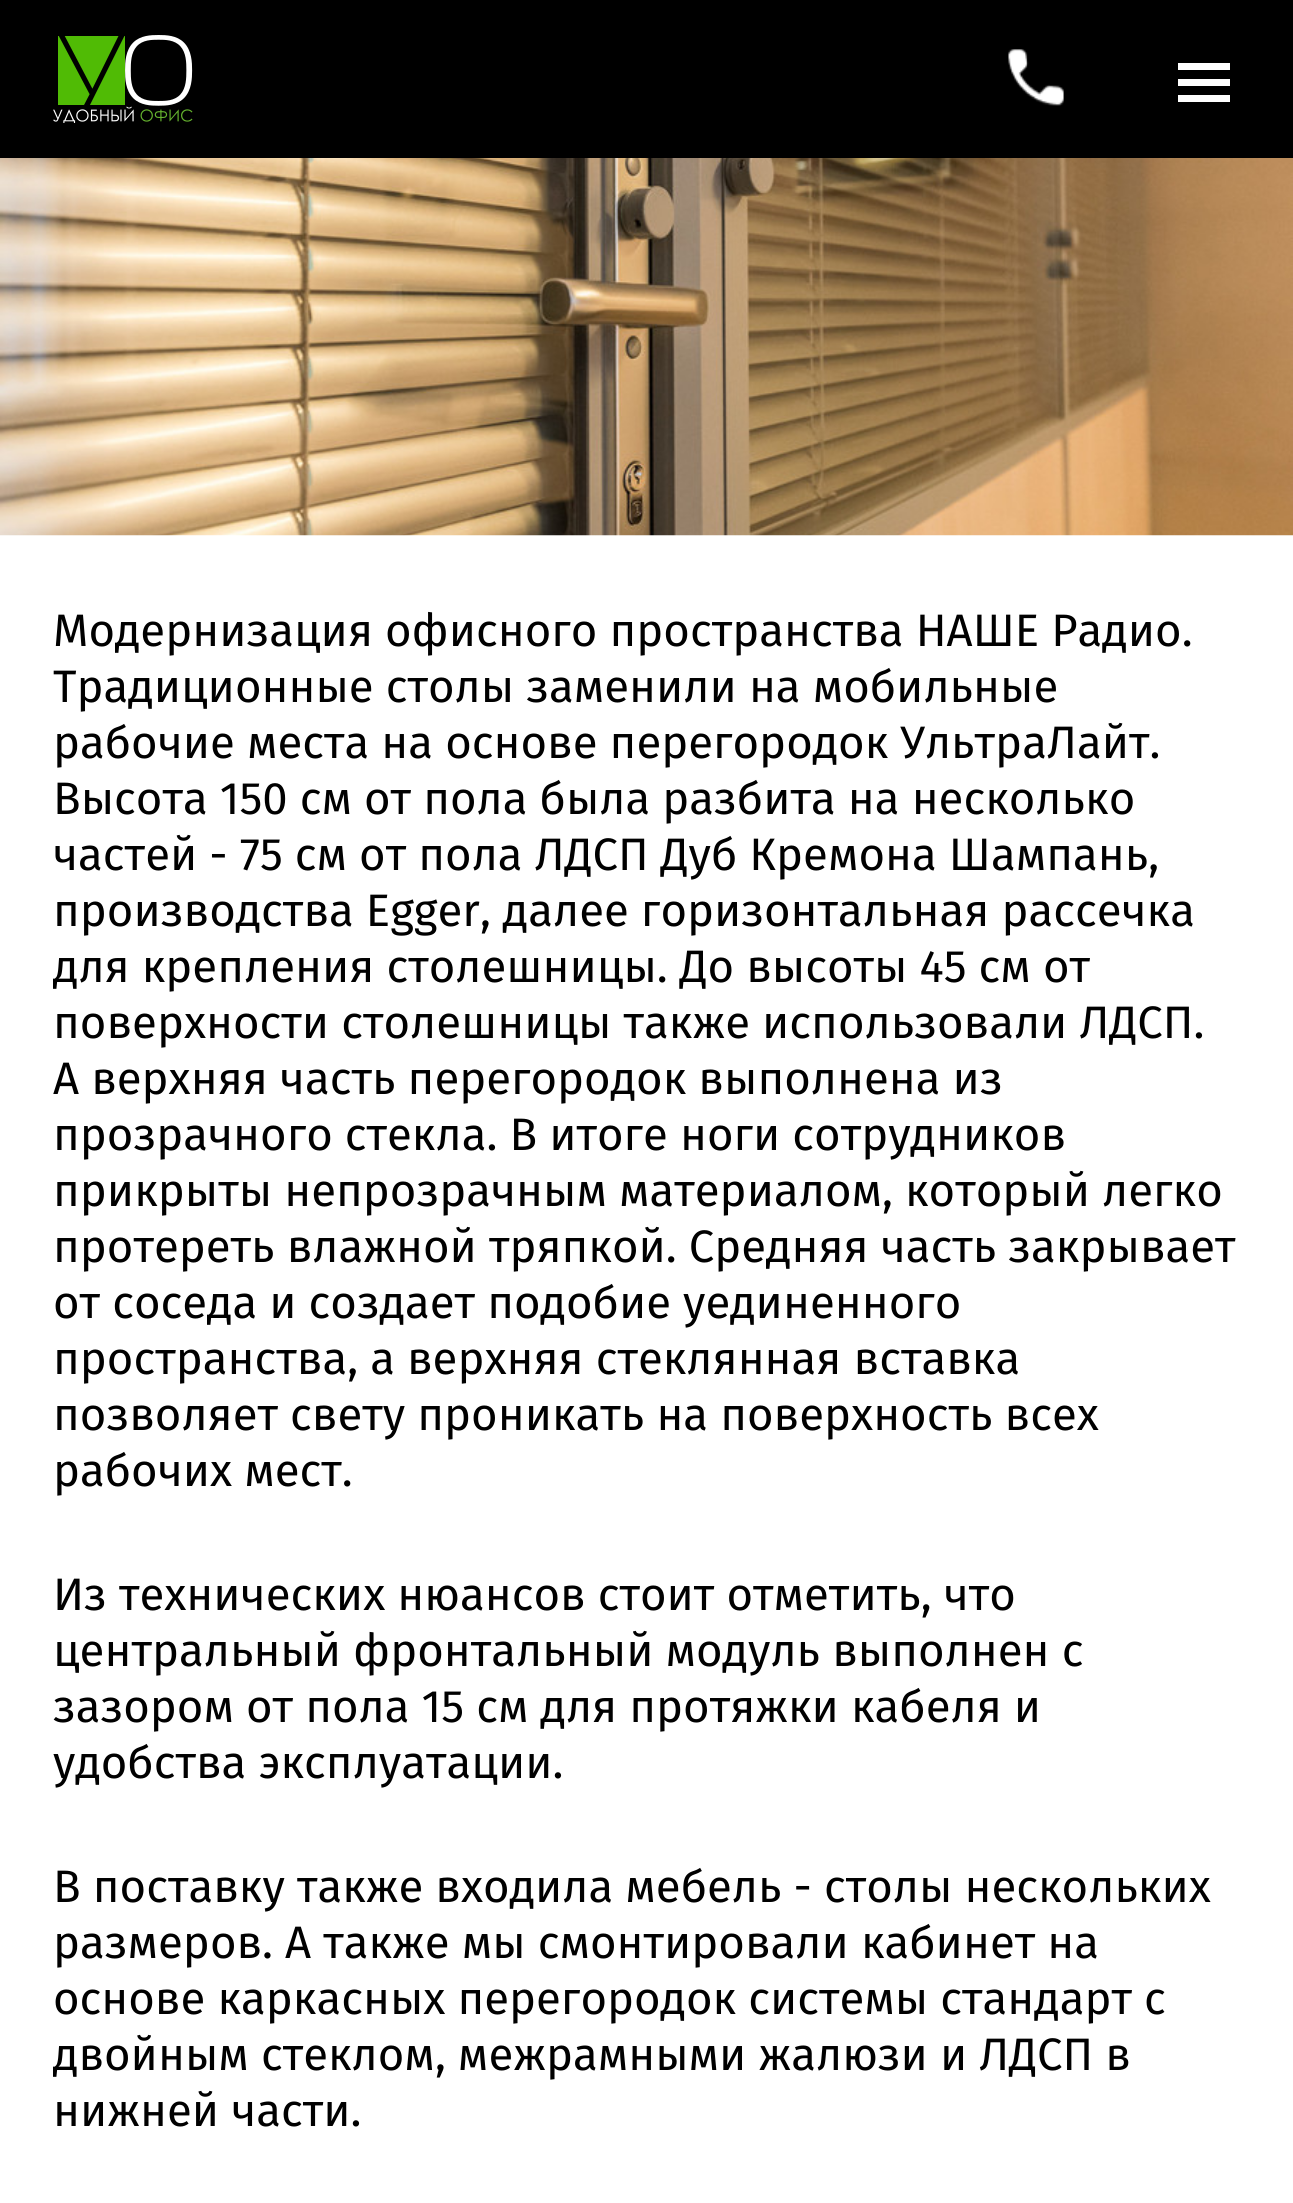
import math
import cairo

surface = cairo.ImageSurface(cairo.Format.RGB24, 1293, 2203)
ctx = cairo.Context(surface)
options = cairo.FontOptions()
options.set_hint_metrics(cairo.HintMetrics.OFF)
options.set_hint_style(cairo.HintStyle.NONE)
ctx.set_font_options(options)
ctx.set_miter_limit(4)


def ink(r, g, b):
    ctx.set_source_rgb(r / 255, g / 255, b / 255)


def write(x, y, s, family, size, color, bold=False, italic=False):
    ctx.select_font_face(family, cairo.FontSlant.ITALIC if italic else cairo.FontSlant.NORMAL, cairo.FontWeight.BOLD if bold else cairo.FontWeight.NORMAL)
    ctx.set_font_size(size)
    ink(*color)
    ctx.move_to(x, y)
    ctx.show_text(s)


def block(x, y, w, h, *color):
    ink(*color)
    ctx.rectangle(x, y, w, h)
    ctx.fill()


def paste(path, x, y, w, h):
    ctx.save()
    ctx.set_source_surface(cairo.ImageSurface.create_from_png(path), x, y)
    ctx.rectangle(x, y, w, h)
    ctx.fill()
    ctx.restore()


s1 = dict(family="Fira Sans", size=45.5, color=(0, 0, 0))

ink(255, 255, 255)
ctx.paint()
block(0, 0, 1293, 158, 0, 0, 0)
paste("pic1.png", 53, 35, 140, 88)
paste("pic2.png", 1008, 49, 56, 57)
block(1178, 63, 52, 7, 255, 255, 255)
block(1178, 79, 52, 7, 255, 255, 255)
block(1178, 95, 52, 7, 255, 255, 255)
paste("pic3.png", 0, 158, 1293, 378)
write(53, 646, "Модернизация офисного пространства НАШЕ Радио.", **s1)
write(53, 702, "Традиционные столы заменили на мобильные", **s1)
write(53, 758, "рабочие места на основе перегородок УльтраЛайт.", **s1)
write(53, 814, "Высота 150 см от пола была разбита на несколько", **s1)
write(53, 870, "частей - 75 см от пола ЛДСП Дуб Кремона Шампань,", **s1)
write(53, 926, "производства Egger, далее горизонтальная рассечка", **s1)
write(53, 982, "для крепления столешницы. До высоты 45 см от", **s1)
write(53, 1038, "поверхности столешницы также использовали ЛДСП.", **s1)
write(53, 1094, "А верхняя часть перегородок выполнена из", **s1)
write(53, 1150, "прозрачного стекла. В итоге ноги сотрудников", **s1)
write(53, 1206, "прикрыты непрозрачным материалом, который легко", **s1)
write(53, 1262, "протереть влажной тряпкой. Средняя часть закрывает", **s1)
write(53, 1318, "от соседа и создает подобие уединенного", **s1)
write(53, 1374, "пространства, а верхняя стеклянная вставка", **s1)
write(53, 1430, "позволяет свету проникать на поверхность всех", **s1)
write(53, 1486, "рабочих мест.", **s1)
write(53, 1610, "Из технических нюансов стоит отметить, что", **s1)
write(53, 1666, "центральный фронтальный модуль выполнен с", **s1)
write(53, 1722, "зазором от пола 15 см для протяжки кабеля и", **s1)
write(53, 1778, "удобства эксплуатации.", **s1)
write(53, 1902, "В поставку также входила мебель - столы нескольких", **s1)
write(53, 1958, "размеров. А также мы смонтировали кабинет на", **s1)
write(53, 2014, "основе каркасных перегородок системы стандарт с", **s1)
write(53, 2070, "двойным стеклом, межрамными жалюзи и ЛДСП в", **s1)
write(53, 2126, "нижней части.", **s1)
surface.write_to_png("screenshot.png")
